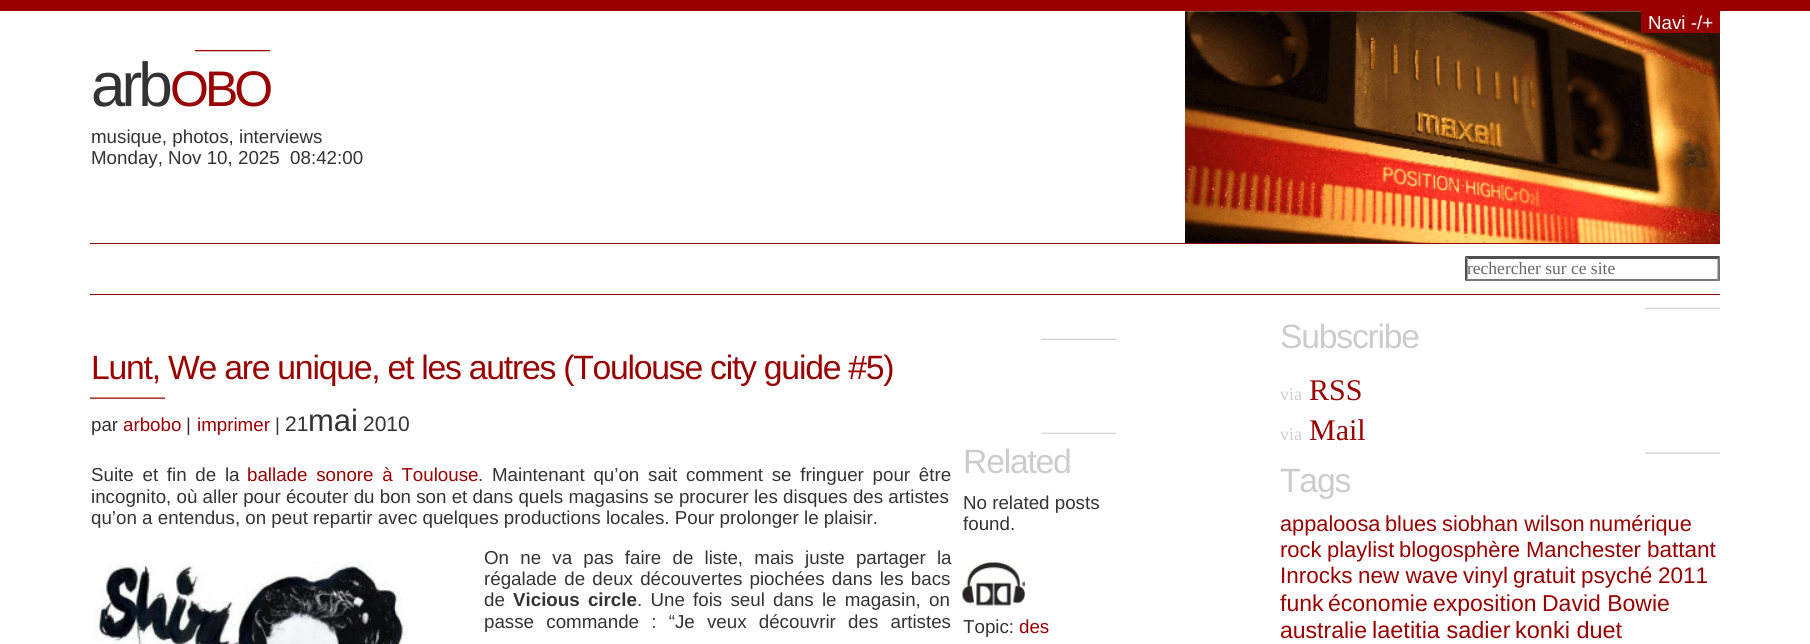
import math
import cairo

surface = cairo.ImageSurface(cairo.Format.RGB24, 1810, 644)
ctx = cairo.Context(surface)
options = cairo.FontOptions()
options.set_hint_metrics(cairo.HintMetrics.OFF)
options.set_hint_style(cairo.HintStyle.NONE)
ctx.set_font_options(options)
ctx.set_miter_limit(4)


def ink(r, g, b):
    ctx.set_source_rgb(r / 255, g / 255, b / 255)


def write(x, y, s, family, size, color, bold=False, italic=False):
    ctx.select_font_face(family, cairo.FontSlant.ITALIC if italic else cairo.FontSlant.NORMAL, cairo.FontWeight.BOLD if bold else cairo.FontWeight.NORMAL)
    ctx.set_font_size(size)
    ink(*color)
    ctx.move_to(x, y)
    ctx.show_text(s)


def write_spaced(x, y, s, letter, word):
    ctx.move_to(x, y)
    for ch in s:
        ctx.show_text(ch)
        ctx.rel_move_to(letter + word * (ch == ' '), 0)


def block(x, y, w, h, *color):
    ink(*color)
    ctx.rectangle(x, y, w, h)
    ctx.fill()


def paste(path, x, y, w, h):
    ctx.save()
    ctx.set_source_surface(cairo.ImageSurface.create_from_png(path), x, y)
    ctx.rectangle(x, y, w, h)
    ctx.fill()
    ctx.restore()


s1 = dict(family="Liberation Sans", size=18.75, color=(255, 255, 255))
s2 = dict(family="Liberation Sans", size=18.75, color=(51, 51, 51))
s3 = dict(family="Liberation Serif", size=17.5, color=(102, 102, 102))
s4 = dict(family="Liberation Sans", size=18.75, color=(153, 0, 0))
s5 = dict(family="Liberation Sans", size=21, color=(51, 51, 51))
s6 = dict(family="Liberation Sans", size=31, color=(51, 51, 51))
s7 = dict(family="Liberation Serif", size=18, color=(204, 204, 204))
s8 = dict(family="Liberation Serif", size=30, color=(153, 0, 0))
s9 = dict(family="Liberation Sans", size=21.75, color=(153, 0, 0))
s10 = dict(family="Liberation Sans", size=22, color=(153, 0, 0))
s11 = dict(family="Liberation Sans", size=22.5, color=(153, 0, 0))
s12 = dict(family="Liberation Sans", size=23, color=(153, 0, 0))
s13 = dict(family="Liberation Sans", size=23.5, color=(153, 0, 0))

ink(255, 255, 255)
ctx.paint()
block(0, 0, 1810, 11, 153, 0, 0)
paste("pic1.png", 1185, 11, 535, 232)
block(90, 243, 1630, 1, 153, 0, 0)
block(1641, 11, 79, 22, 153, 0, 0)
write(1648, 29, "Navi -/+", **s1)
paste("pic2.png", 195, 50, 75, 2)
ctx.set_font_size(62)
ink(51, 51, 51)
write_spaced(91, 106, "arb", -4, 0)
ctx.set_font_size(50)
ink(153, 0, 0)
write_spaced(170, 106, "OBO", -4, 0)
write(91, 143, "musique, photos, interviews", **s2)
write(91, 164, "Monday, Nov 10, 2025  08:42:00", **s2)
block(90, 294, 1630, 1, 153, 0, 0)
ink(79, 79, 79)
ctx.new_path()
ctx.move_to(1465, 256)
ctx.line_to(1720, 256)
ctx.line_to(1718, 259)
ctx.line_to(1468, 259)
ctx.close_path()
ctx.fill()
ink(118, 118, 118)
ctx.new_path()
ctx.move_to(1720, 256)
ctx.line_to(1720, 281)
ctx.line_to(1717.5, 279)
ctx.line_to(1717.5, 259)
ctx.close_path()
ctx.fill()
ctx.new_path()
ctx.move_to(1720, 281)
ctx.line_to(1465, 281)
ctx.line_to(1468, 279)
ctx.line_to(1718, 279)
ctx.close_path()
ctx.fill()
ink(79, 79, 79)
ctx.new_path()
ctx.move_to(1465, 281)
ctx.line_to(1465, 256)
ctx.line_to(1467.5, 259)
ctx.line_to(1467.5, 279)
ctx.close_path()
ctx.fill()
write(1467, 274, "rechercher sur ce site", **s3)
paste("pic3.png", 1041, 338, 76, 2)
ctx.select_font_face("Liberation Sans")
ctx.set_font_size(33.75)
ink(153, 0, 0)
write_spaced(91, 379, "Lunt, We are unique, et les autres (Toulouse city guide #5)", -1.25, 0)
paste("pic4.png", 90, 397, 75, 2)
write(91, 431, "par", **s2)
write(123, 431, "arbobo", **s4)
write(186, 431, "|", **s2)
write(197, 431, "imprimer", **s4)
write(275, 431, "|", **s2)
write(285, 431, "21", **s5)
write(308, 431, "mai", **s6)
write(363, 431, "2010", **s5)
ctx.set_font_size(18.75)
write_spaced(91, 481, "Suite et fin de la", 0, 3.5)
ink(153, 0, 0)
write_spaced(247, 481, "ballade sonore à Toulouse", 0, 3.5)
ink(51, 51, 51)
write_spaced(478, 481, ". Maintenant qu’on sait comment se fringuer pour être", 0, 3.5)
write(91, 503, "incognito, où aller pour écouter du bon son et dans quels magasins se procurer les disques des artistes", **s2)
write(91, 524, "qu’on a entendus, on peut repartir avec quelques productions locales. Pour prolonger le plaisir.", **s2)
write_spaced(484, 564, "On ne va pas faire de liste, mais juste partager la", 0, 6)
paste("pic5.png", 95, 561, 311, 83)
write_spaced(484, 585, "régalade de deux découvertes piochées dans les bacs", 0, 2)
write(484, 606, "de", **s2)
ctx.select_font_face("Liberation Sans", cairo.FontSlant.NORMAL, cairo.FontWeight.BOLD)
write_spaced(513, 606, "Vicious circle", 0, 3)
ctx.select_font_face("Liberation Sans")
write_spaced(637, 606, ". Une fois seul dans le magasin, on", 0, 3)
write_spaced(484, 628, "passe commande : “Je veux découvrir des artistes", 0, 7)
paste("pic6.png", 1041, 432, 75, 2)
ctx.set_font_size(33.75)
ink(204, 204, 204)
write_spaced(963, 473, "Related", -1.25, 0)
write(963, 509, "No related posts", **s2)
write(963, 530, "found.", **s2)
paste("pic7.png", 962, 557, 63, 56)
write(963, 633, "Topic:", **s2)
write(1019, 633, "des", **s4)
paste("pic8.png", 1645, 307, 75, 2)
ctx.set_font_size(33.75)
ink(204, 204, 204)
write_spaced(1280, 348, "Subscribe", -1.25, 0)
write(1280, 400, "via", **s7)
write(1309, 400, "RSS", **s8)
write(1280, 440, "via", **s7)
write(1309, 440, "Mail", **s8)
paste("pic9.png", 1645, 452, 75, 2)
ctx.select_font_face("Liberation Sans")
ctx.set_font_size(33.75)
ink(204, 204, 204)
write_spaced(1280, 492, "Tags", -1.25, 0)
write(1280, 531, "appaloosa", **s9)
write(1385, 531, "blues", **s9)
write(1442, 531, "siobhan wilson", **s9)
write(1589, 531, "numérique", **s9)
write(1280, 557, "rock", **s10)
write(1327, 557, "playlist", **s10)
write(1399, 557, "blogosphère", **s10)
write(1526, 557, "Manchester", **s10)
write(1647, 557, "battant", **s11)
write(1280, 583, "Inrocks", **s11)
write(1358, 583, "new wave", **s11)
write(1463, 583, "vinyl", **s11)
write(1513, 583, "gratuit", **s11)
write(1581, 583, "psyché", **s11)
write(1658, 583, "2011", **s11)
write(1280, 611, "funk", **s12)
write(1328, 611, "économie", **s12)
write(1433, 611, "exposition", **s12)
write(1542, 611, "David Bowie", **s12)
write(1280, 638, "australie", **s12)
write(1372, 638, "laetitia sadier", **s13)
write(1515, 638, "konki duet", **s13)
surface.write_to_png("screenshot.png")
